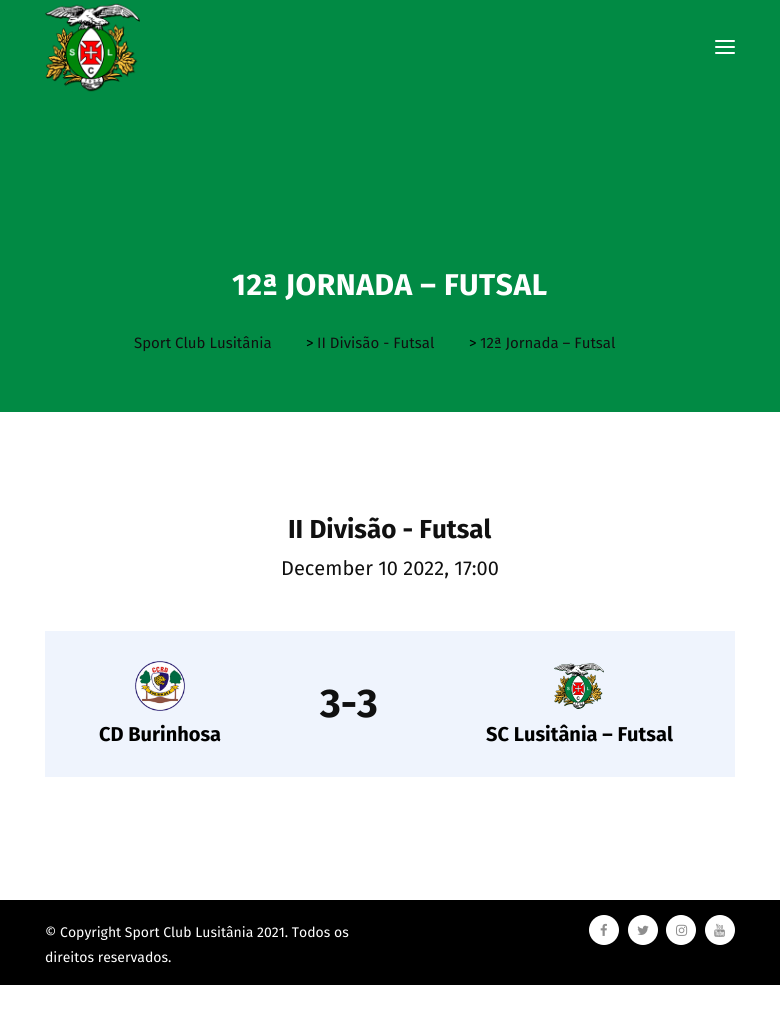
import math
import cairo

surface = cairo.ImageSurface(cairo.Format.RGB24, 780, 1013)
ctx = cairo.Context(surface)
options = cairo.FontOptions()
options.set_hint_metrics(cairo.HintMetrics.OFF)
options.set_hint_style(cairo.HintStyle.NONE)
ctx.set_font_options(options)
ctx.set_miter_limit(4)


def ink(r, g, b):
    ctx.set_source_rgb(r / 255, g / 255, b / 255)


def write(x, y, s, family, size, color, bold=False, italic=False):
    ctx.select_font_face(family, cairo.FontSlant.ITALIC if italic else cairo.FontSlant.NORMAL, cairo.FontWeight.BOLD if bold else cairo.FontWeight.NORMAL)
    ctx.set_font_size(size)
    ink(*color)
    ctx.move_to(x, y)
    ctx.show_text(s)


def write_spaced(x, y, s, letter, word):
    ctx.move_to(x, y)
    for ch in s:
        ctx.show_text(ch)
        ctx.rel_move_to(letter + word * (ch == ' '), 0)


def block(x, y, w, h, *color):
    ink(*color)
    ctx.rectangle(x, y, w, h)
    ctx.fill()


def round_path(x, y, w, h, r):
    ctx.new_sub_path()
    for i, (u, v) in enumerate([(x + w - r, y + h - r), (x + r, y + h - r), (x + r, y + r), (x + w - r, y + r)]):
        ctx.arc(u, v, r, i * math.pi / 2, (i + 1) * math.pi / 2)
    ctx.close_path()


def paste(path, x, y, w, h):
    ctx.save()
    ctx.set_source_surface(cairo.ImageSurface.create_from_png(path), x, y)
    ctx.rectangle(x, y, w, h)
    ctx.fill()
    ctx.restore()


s1 = dict(family="Fira Sans", size=15, color=(16, 16, 16))
s2 = dict(family="Fira Sans", size=15, color=(0, 0, 0))
s3 = dict(family="Fira Sans", size=26, color=(16, 16, 16), bold=True)
s4 = dict(family="Fira Sans", size=20, color=(16, 16, 16))
s5 = dict(family="Fira Sans", size=40, color=(16, 16, 16), bold=True)
s6 = dict(family="Fira Sans", size=20, color=(0, 0, 0), bold=True)
s7 = dict(family="Fira Sans", size=14, color=(255, 255, 255))

ink(255, 255, 255)
ctx.paint()
block(0, 0, 780, 412, 1, 138, 68)
paste("pic1.png", 45, 3, 95, 89)
ink(255, 255, 255)
round_path(715, 40, 20, 2, 1)
ctx.fill()
round_path(715, 46, 20, 2, 1)
ctx.fill()
round_path(715, 52, 20, 2, 1)
ctx.fill()
ctx.select_font_face("Fira Sans", cairo.FontSlant.NORMAL, cairo.FontWeight.BOLD)
ctx.set_font_size(30)
write_spaced(232, 295, "12ª JORNADA – FUTSAL", 0.5, 0)
write(134, 348, "Sport Club Lusitânia", **s1)
write(306, 348, ">", **s2)
write(317, 348, "II Divisão - Futsal", **s1)
write(469, 348, ">", **s2)
write(480, 348, "12ª Jornada – Futsal", **s1)
write(288, 538, "II Divisão - Futsal", **s3)
write(281, 575, "December 10 2022, 17:00", **s4)
block(45, 631, 690, 146, 239, 244, 253)
write(320, 717, "3-3", **s5)
paste("pic2.png", 135, 661, 50, 50)
write(99, 741, "CD Burinhosa", **s6)
paste("pic3.png", 554, 663, 50, 46)
write(486, 741, "SC Lusitânia – Futsal", **s6)
block(0, 900, 780, 85, 0, 0, 0)
write(45, 937, "© Copyright Sport Club Lusitânia 2021. Todos os", **s7)
write(45, 962, "direitos reservados.", **s7)
ctx.new_path()
ctx.arc(604, 930, 15, 0, 2 * math.pi)
ctx.fill()
paste("pic4.png", 600, 923, 7, 13)
ctx.arc(643, 930, 15, 0, 2 * math.pi)
ctx.fill()
paste("pic5.png", 637, 925, 12, 10)
ctx.arc(681, 930, 15, 0, 2 * math.pi)
ctx.fill()
paste("pic6.png", 676, 924, 12, 12)
ctx.arc(720, 930, 15, 0, 2 * math.pi)
ctx.fill()
paste("pic7.png", 714, 923, 11, 14)
surface.write_to_png("screenshot.png")
